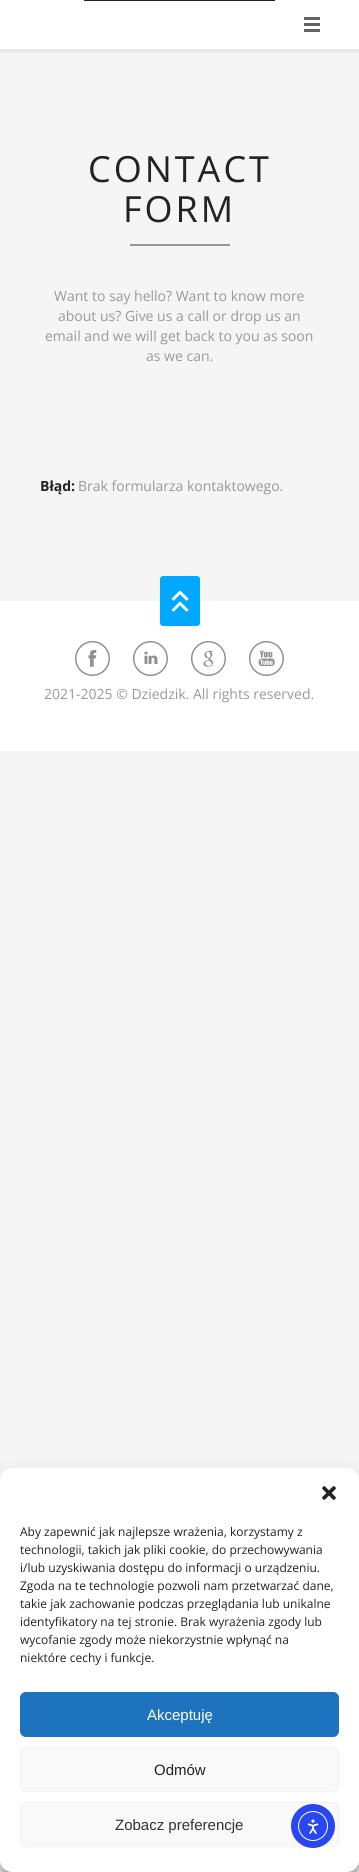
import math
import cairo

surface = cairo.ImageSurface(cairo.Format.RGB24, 359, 1872)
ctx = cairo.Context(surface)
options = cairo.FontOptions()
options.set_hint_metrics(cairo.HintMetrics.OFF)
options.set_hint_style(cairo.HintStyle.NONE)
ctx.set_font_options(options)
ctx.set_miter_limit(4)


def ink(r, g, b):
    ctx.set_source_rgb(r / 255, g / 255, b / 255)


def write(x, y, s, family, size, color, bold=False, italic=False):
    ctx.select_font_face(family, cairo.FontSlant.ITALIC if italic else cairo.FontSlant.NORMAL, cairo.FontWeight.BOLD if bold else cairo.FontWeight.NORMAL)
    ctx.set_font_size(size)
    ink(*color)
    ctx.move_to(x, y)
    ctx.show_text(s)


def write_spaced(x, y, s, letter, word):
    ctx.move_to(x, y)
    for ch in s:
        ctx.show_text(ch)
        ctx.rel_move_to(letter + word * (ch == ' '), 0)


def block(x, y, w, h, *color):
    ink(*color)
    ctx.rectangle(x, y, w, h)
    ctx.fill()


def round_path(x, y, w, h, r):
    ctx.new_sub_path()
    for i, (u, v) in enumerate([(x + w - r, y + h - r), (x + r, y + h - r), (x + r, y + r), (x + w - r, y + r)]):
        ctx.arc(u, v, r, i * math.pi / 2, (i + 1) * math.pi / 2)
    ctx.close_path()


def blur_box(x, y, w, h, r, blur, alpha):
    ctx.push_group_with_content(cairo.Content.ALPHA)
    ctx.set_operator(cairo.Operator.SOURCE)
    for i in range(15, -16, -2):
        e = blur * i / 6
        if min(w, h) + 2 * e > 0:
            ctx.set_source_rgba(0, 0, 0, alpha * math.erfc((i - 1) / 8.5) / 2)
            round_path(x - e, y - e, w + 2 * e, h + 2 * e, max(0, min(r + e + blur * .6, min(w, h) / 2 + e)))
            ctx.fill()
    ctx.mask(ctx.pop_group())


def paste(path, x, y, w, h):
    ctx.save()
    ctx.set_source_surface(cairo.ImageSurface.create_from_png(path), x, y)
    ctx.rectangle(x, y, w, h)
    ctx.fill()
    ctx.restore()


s1 = dict(family="Open Sans", size=14, color=(153, 153, 153))
s2 = dict(family="Open Sans", size=14, color=(34, 34, 34), bold=True)
s3 = dict(family="Open Sans", size=12, color=(34, 34, 34))
s4 = dict(family="Liberation Sans", size=15, color=(255, 255, 255))
s5 = dict(family="Liberation Sans", size=15, color=(34, 34, 34))
s6 = dict(family="Liberation Sans", size=15, color=(51, 51, 51))

ink(245, 245, 245)
ctx.paint()
ink(0, 0, 0)
blur_box(0, 2, 359, 49, 0, 2.5, 0.1)
block(0, 0, 359, 49, 255, 255, 255)
block(84, 0, 191, 1, 34, 34, 34)
paste("pic1.png", 304, 17, 16, 15)
ctx.select_font_face("Open Sans")
ctx.set_font_size(36)
write_spaced(88, 182, "CONTACT", 3, 0)
write_spaced(123, 222, "FORM", 3, 0)
block(130, 244, 100, 2, 153, 153, 153)
write(54, 301, "Want to say hello? Want to know more", **s1)
write(58, 321, "about us? Give us a call or drop us an", **s1)
write(45, 341, "email and we will get back to you as soon", **s1)
write(146, 361, "as we can.", **s1)
write(40, 491, "Błąd:", **s2)
write(78, 491, "Brak formularza kontaktowego.", **s1)
block(0, 601, 359, 150, 255, 255, 255)
ink(0, 168, 255)
round_path(160, 576, 40, 50, 3)
ctx.fill()
paste("pic2.png", 171, 590, 18, 22)
paste("pic3.png", 75, 641, 35, 35)
paste("pic4.png", 133, 641, 35, 35)
paste("pic5.png", 191, 641, 35, 35)
paste("pic6.png", 249, 641, 35, 35)
write(44, 699, "2021-2025 © Dziedzik. All rights reserved.", **s1)
ink(0, 0, 0)
blur_box(0, 1474, 359, 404, 12, 3, 0.23)
blur_box(0, 1478, 359, 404, 12, 10, 0.19)
ink(255, 255, 255)
round_path(0, 1468, 359, 404, 12)
ctx.fill()
paste("pic7.png", 322, 1486, 14, 14)
write(20, 1536, "Aby zapewnić jak najlepsze wrażenia, korzystamy z", **s3)
write(20, 1554, "technologii, takich jak pliki cookie, do przechowywania", **s3)
write(20, 1572, "i/lub uzyskiwania dostępu do informacji o urządzeniu.", **s3)
write(20, 1590, "Zgoda na te technologie pozwoli nam przetwarzać dane,", **s3)
write(20, 1608, "takie jak zachowanie podczas przeglądania lub unikalne", **s3)
write(20, 1626, "identyfikatory na tej stronie. Brak wyrażenia zgody lub", **s3)
write(20, 1644, "wycofanie zgody może niekorzystnie wpłynąć na", **s3)
write(20, 1662, "niektóre cechy i funkcje.", **s3)
ink(30, 115, 190)
round_path(20.5, 1692.5, 318, 44, 5.5)
ctx.fill_preserve()
ctx.set_line_width(1)
ctx.stroke()
write(147, 1720, "Akceptuję", **s4)
ink(249, 249, 249)
round_path(20.5, 1747.5, 318, 44, 5.5)
ctx.fill_preserve()
ink(242, 242, 242)
ctx.stroke()
write(154, 1775, "Odmów", **s5)
ink(249, 249, 249)
round_path(20.5, 1802.5, 318, 44, 5.5)
ctx.fill_preserve()
ink(242, 242, 242)
ctx.stroke()
write(115, 1830, "Zobacz preferencje", **s6)
ink(40, 71, 243)
ctx.new_path()
ctx.arc(313, 1826, 22, 0, 2 * math.pi)
ctx.fill()
ctx.arc(313, 1826, 14.5, 0, 2 * math.pi)
ink(255, 255, 255)
ctx.stroke()
paste("pic8.png", 307, 1819, 12, 15)
surface.write_to_png("screenshot.png")
